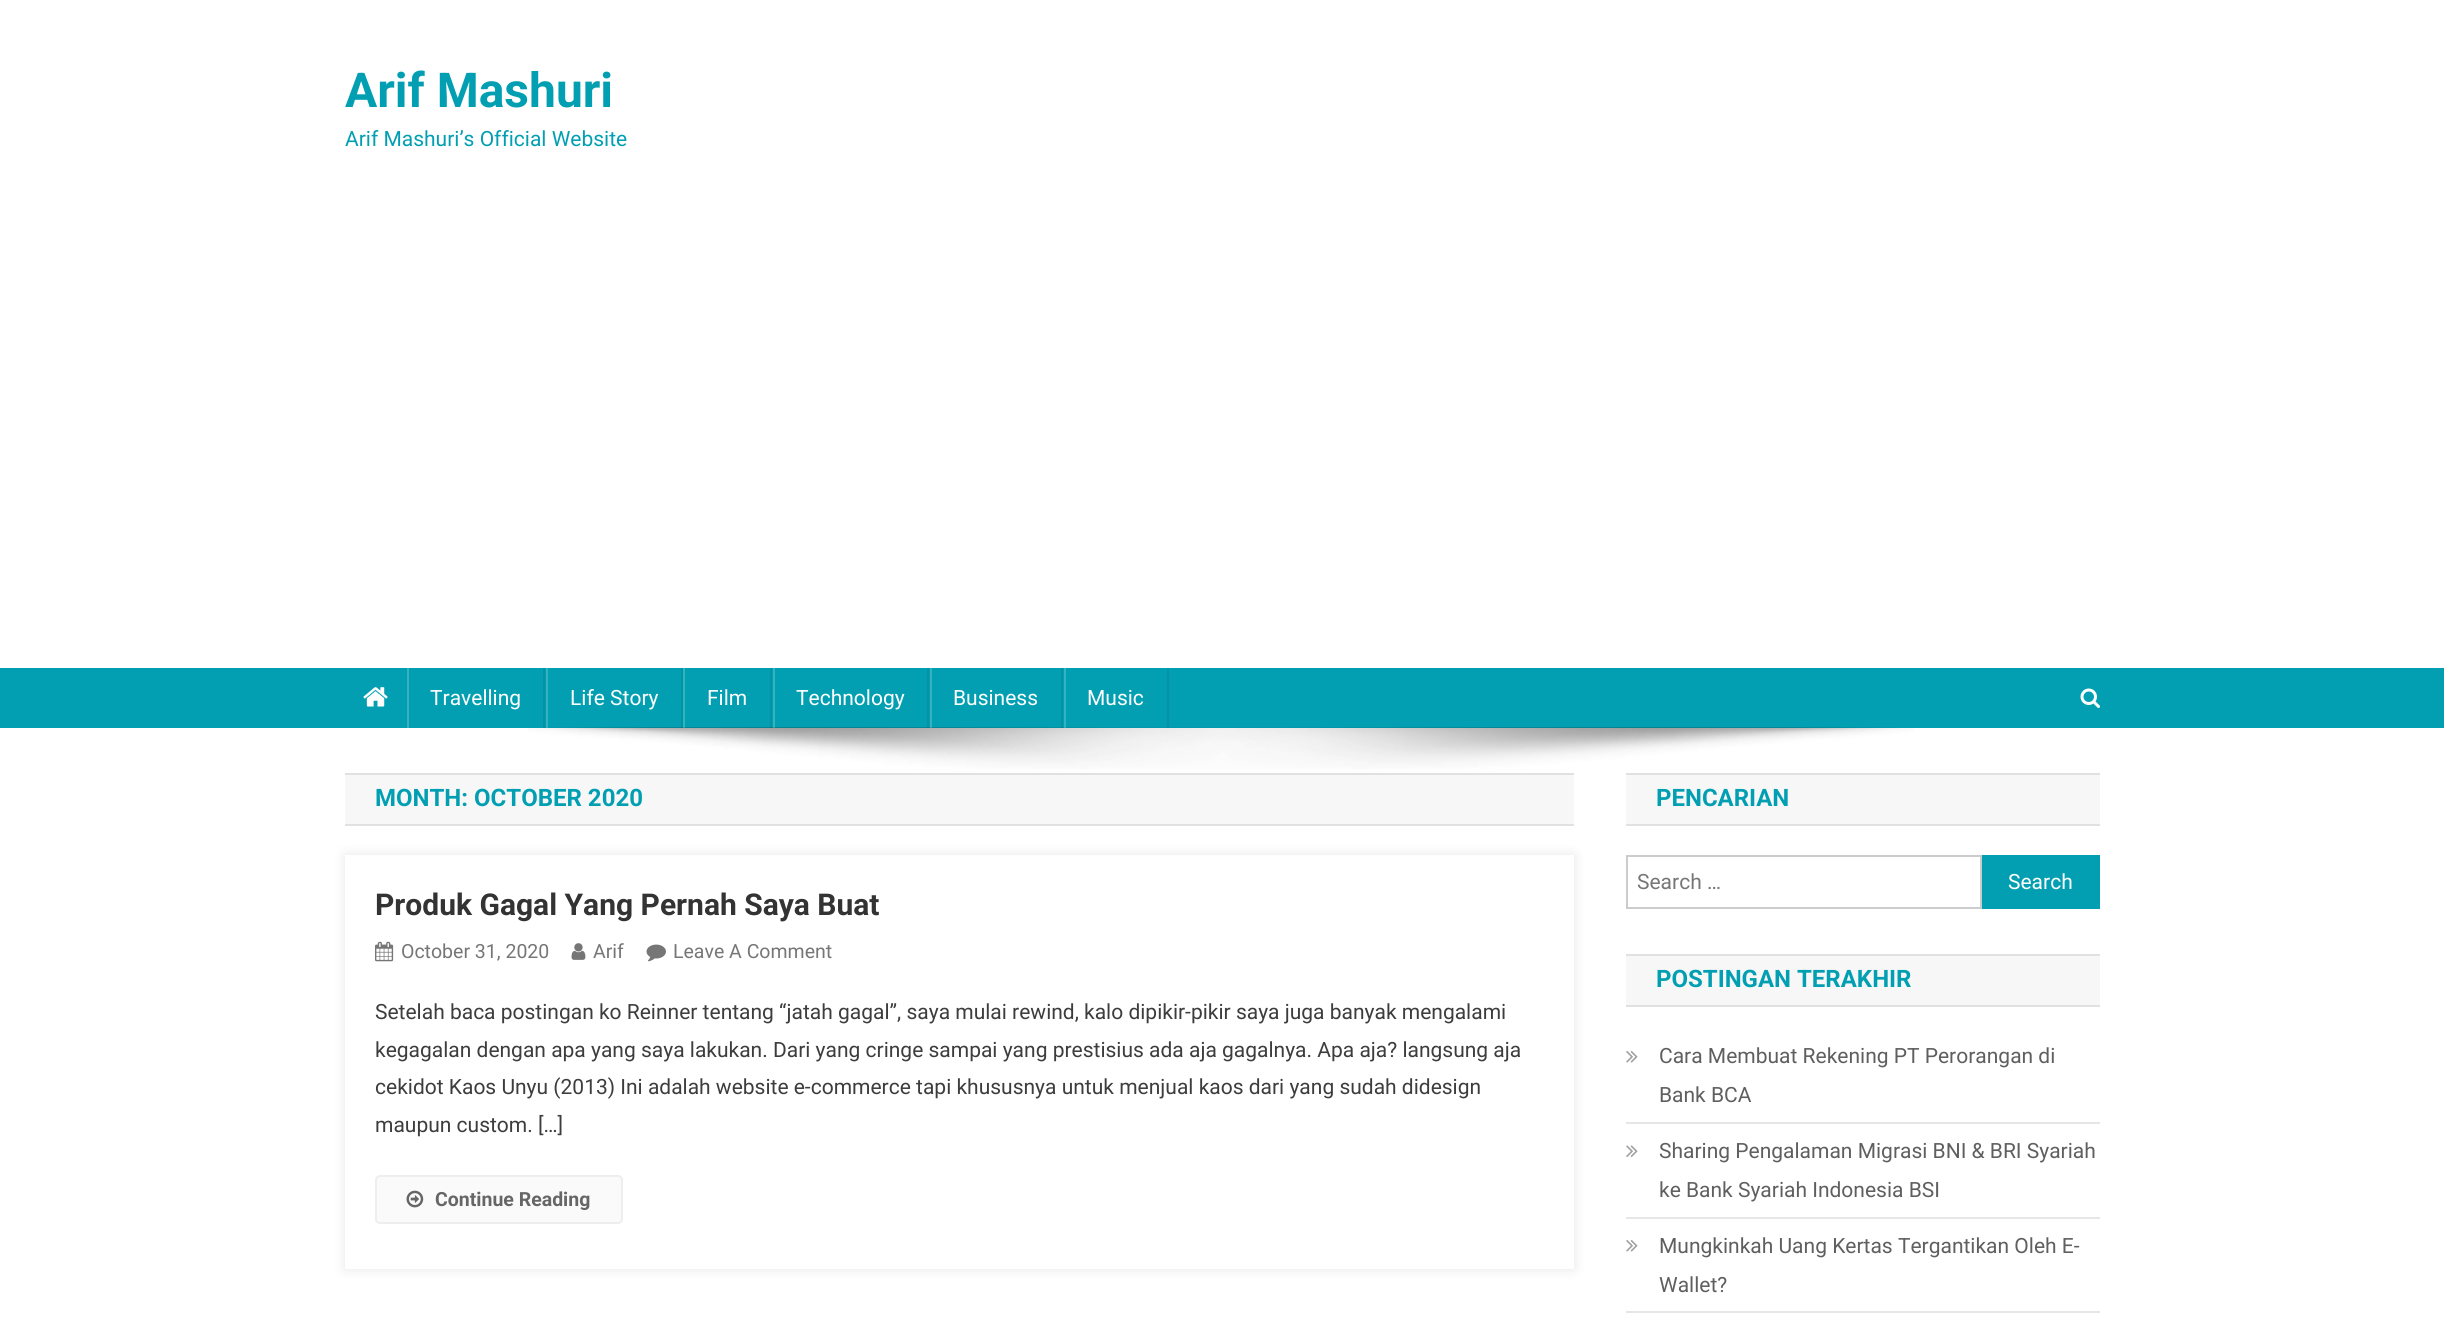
import math
import cairo

surface = cairo.ImageSurface(cairo.Format.RGB24, 2444, 1327)
ctx = cairo.Context(surface)
options = cairo.FontOptions()
options.set_hint_metrics(cairo.HintMetrics.OFF)
options.set_hint_style(cairo.HintStyle.NONE)
ctx.set_font_options(options)
ctx.set_miter_limit(4)


def ink(r, g, b):
    ctx.set_source_rgb(r / 255, g / 255, b / 255)


def write(x, y, s, family, size, color, bold=False, italic=False):
    ctx.select_font_face(family, cairo.FontSlant.ITALIC if italic else cairo.FontSlant.NORMAL, cairo.FontWeight.BOLD if bold else cairo.FontWeight.NORMAL)
    ctx.set_font_size(size)
    ink(*color)
    ctx.move_to(x, y)
    ctx.show_text(s)


def block(x, y, w, h, *color):
    ink(*color)
    ctx.rectangle(x, y, w, h)
    ctx.fill()


def round_path(x, y, w, h, r):
    ctx.new_sub_path()
    for i, (u, v) in enumerate([(x + w - r, y + h - r), (x + r, y + h - r), (x + r, y + r), (x + w - r, y + r)]):
        ctx.arc(u, v, r, i * math.pi / 2, (i + 1) * math.pi / 2)
    ctx.close_path()


def blur_box(x, y, w, h, r, blur, alpha):
    ctx.push_group_with_content(cairo.Content.ALPHA)
    ctx.set_operator(cairo.Operator.SOURCE)
    for i in range(15, -16, -2):
        e = blur * i / 6
        if min(w, h) + 2 * e > 0:
            ctx.set_source_rgba(0, 0, 0, alpha * math.erfc((i - 1) / 8.5) / 2)
            round_path(x - e, y - e, w + 2 * e, h + 2 * e, max(0, min(r + e + blur * .6, min(w, h) / 2 + e)))
            ctx.fill()
    ctx.mask(ctx.pop_group())


def paste(path, x, y, w, h):
    ctx.save()
    ctx.set_source_surface(cairo.ImageSurface.create_from_png(path), x, y)
    ctx.rectangle(x, y, w, h)
    ctx.fill()
    ctx.restore()


s1 = dict(family="Roboto", size=48, color=(2, 159, 178), bold=True)
s2 = dict(family="Roboto", size=21, color=(2, 159, 178))
s3 = dict(family="Roboto", size=21, color=(255, 255, 255))
s4 = dict(family="Roboto", size=24, color=(2, 159, 178), bold=True)
s5 = dict(family="Roboto", size=30, color=(51, 51, 51), bold=True)
s6 = dict(family="Roboto", size=19.5, color=(118, 118, 118))
s7 = dict(family="Roboto", size=21, color=(61, 61, 61))
s8 = dict(family="Roboto", size=19.5, color=(102, 102, 102), bold=True)
s9 = dict(family="Roboto", size=21, color=(118, 118, 118))
s10 = dict(family="Roboto", size=21, color=(95, 95, 95))

ink(255, 255, 255)
ctx.paint()
write(345, 107, "Arif Mashuri", **s1)
write(345, 146, "Arif Mashuri’s Official Website", **s2)
block(0, 668, 2444, 60, 2, 159, 178)
block(543, 668, 2, 60, 2, 146, 164)
paste("pic1.png", 363, 687, 25, 20)
block(407, 668, 2, 60, 53, 178, 193)
write(430, 705, "Travelling", **s3)
paste("pic3.png", 528, 727, 1386, 42)
ctx.set_source_rgba(0, 0, 0, 0.08)
ctx.rectangle(681, 668, 2, 60)
ctx.fill()
ctx.set_source_rgba(1, 1, 1, 0.2)
ctx.rectangle(546, 668, 2, 60)
ctx.fill()
write(570, 705, "Life Story", **s3)
ctx.set_source_rgba(0, 0, 0, 0.08)
ctx.rectangle(770, 668, 2, 60)
ctx.fill()
ctx.set_source_rgba(1, 1, 1, 0.2)
ctx.rectangle(683, 668, 2, 60)
ctx.fill()
write(707, 705, "Film", **s3)
ctx.set_source_rgba(0, 0, 0, 0.08)
ctx.rectangle(927, 668, 2, 60)
ctx.fill()
ctx.set_source_rgba(1, 1, 1, 0.2)
ctx.rectangle(773, 668, 2, 60)
ctx.fill()
write(796, 705, "Technology", **s3)
ctx.set_source_rgba(0, 0, 0, 0.08)
ctx.rectangle(1061, 668, 2, 60)
ctx.fill()
ctx.set_source_rgba(1, 1, 1, 0.2)
ctx.rectangle(930, 668, 2, 60)
ctx.fill()
write(953, 705, "Business", **s3)
ctx.set_source_rgba(0, 0, 0, 0.08)
ctx.rectangle(1167, 668, 2, 60)
ctx.fill()
ctx.set_source_rgba(1, 1, 1, 0.2)
ctx.rectangle(1064, 668, 2, 60)
ctx.fill()
write(1087, 705, "Music", **s3)
paste("pic2.png", 2080, 688, 20, 20)
block(345, 775, 1229, 49, 247, 247, 247)
block(345, 773, 1229, 2, 225, 225, 225)
block(345, 824, 1229, 2, 225, 225, 225)
write(375, 806, "MONTH: OCTOBER 2020", **s4)
ctx.save()
ctx.set_fill_rule(cairo.FillRule.EVEN_ODD)
ctx.new_path()
ctx.move_to(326, 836)
ctx.line_to(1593, 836)
ctx.line_to(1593, 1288)
ctx.line_to(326, 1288)
ctx.close_path()
ctx.move_to(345, 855)
ctx.line_to(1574, 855)
ctx.line_to(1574, 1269)
ctx.line_to(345, 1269)
ctx.close_path()
ctx.clip()
ink(0, 0, 0)
blur_box(345, 855, 1229, 414, 0, 6, 0.1)
ctx.restore()
write(375, 915, "Produk Gagal Yang Pernah Saya Buat", **s5)
paste("pic4.png", 375, 941, 19, 21)
write(401, 958, "October 31, 2020", **s6)
paste("pic5.png", 571, 943, 15, 17)
write(593, 958, "Arif", **s6)
paste("pic6.png", 646, 944, 20, 18)
write(673, 958, "Leave A Comment", **s6)
write(375, 1019, "Setelah baca postingan ko Reinner tentang “jatah gagal”, saya mulai rewind, kalo dipikir-pikir saya juga banyak mengalami", **s7)
write(375, 1057, "kegagalan dengan apa yang saya lakukan. Dari yang cringe sampai yang prestisius ada aja gagalnya. Apa aja? langsung aja", **s7)
write(375, 1094, "cekidot Kaos Unyu (2013) Ini adalah website e-commerce tapi khususnya untuk menjual kaos dari yang sudah didesign", **s7)
write(375, 1132, "maupun custom. […]", **s7)
ink(250, 250, 250)
round_path(376, 1176, 246, 47, 4)
ctx.fill_preserve()
ink(238, 238, 238)
ctx.stroke()
paste("pic7.png", 406, 1190, 18, 18)
write(435, 1206, "Continue Reading", **s8)
block(1626, 775, 474, 49, 247, 247, 247)
block(1626, 773, 474, 2, 225, 225, 225)
block(1626, 824, 474, 2, 225, 225, 225)
write(1656, 806, "PENCARIAN", **s4)
ctx.rectangle(1627, 856, 354, 52)
ink(204, 204, 204)
ctx.stroke()
write(1637, 889, "Search …", **s9)
block(1982, 855, 118, 54, 2, 159, 178)
write(2008, 889, "Search", **s3)
block(1626, 956, 474, 49, 247, 247, 247)
block(1626, 954, 474, 2, 225, 225, 225)
block(1626, 1005, 474, 2, 225, 225, 225)
write(1656, 987, "POSTINGAN TERAKHIR", **s4)
block(1626, 1122, 474, 2, 230, 230, 230)
paste("pic8.png", 1626, 1051, 12, 12)
write(1659, 1063, "Cara Membuat Rekening PT Perorangan di", **s10)
write(1659, 1102, "Bank BCA", **s10)
block(1626, 1217, 474, 2, 230, 230, 230)
paste("pic9.png", 1626, 1145, 12, 12)
write(1659, 1158, "Sharing Pengalaman Migrasi BNI & BRI Syariah", **s10)
write(1659, 1197, "ke Bank Syariah Indonesia BSI", **s10)
block(1626, 1311, 474, 2, 230, 230, 230)
paste("pic8.png", 1626, 1240, 12, 12)
write(1659, 1253, "Mungkinkah Uang Kertas Tergantikan Oleh E-", **s10)
write(1659, 1292, "Wallet?", **s10)
surface.write_to_png("screenshot.png")
